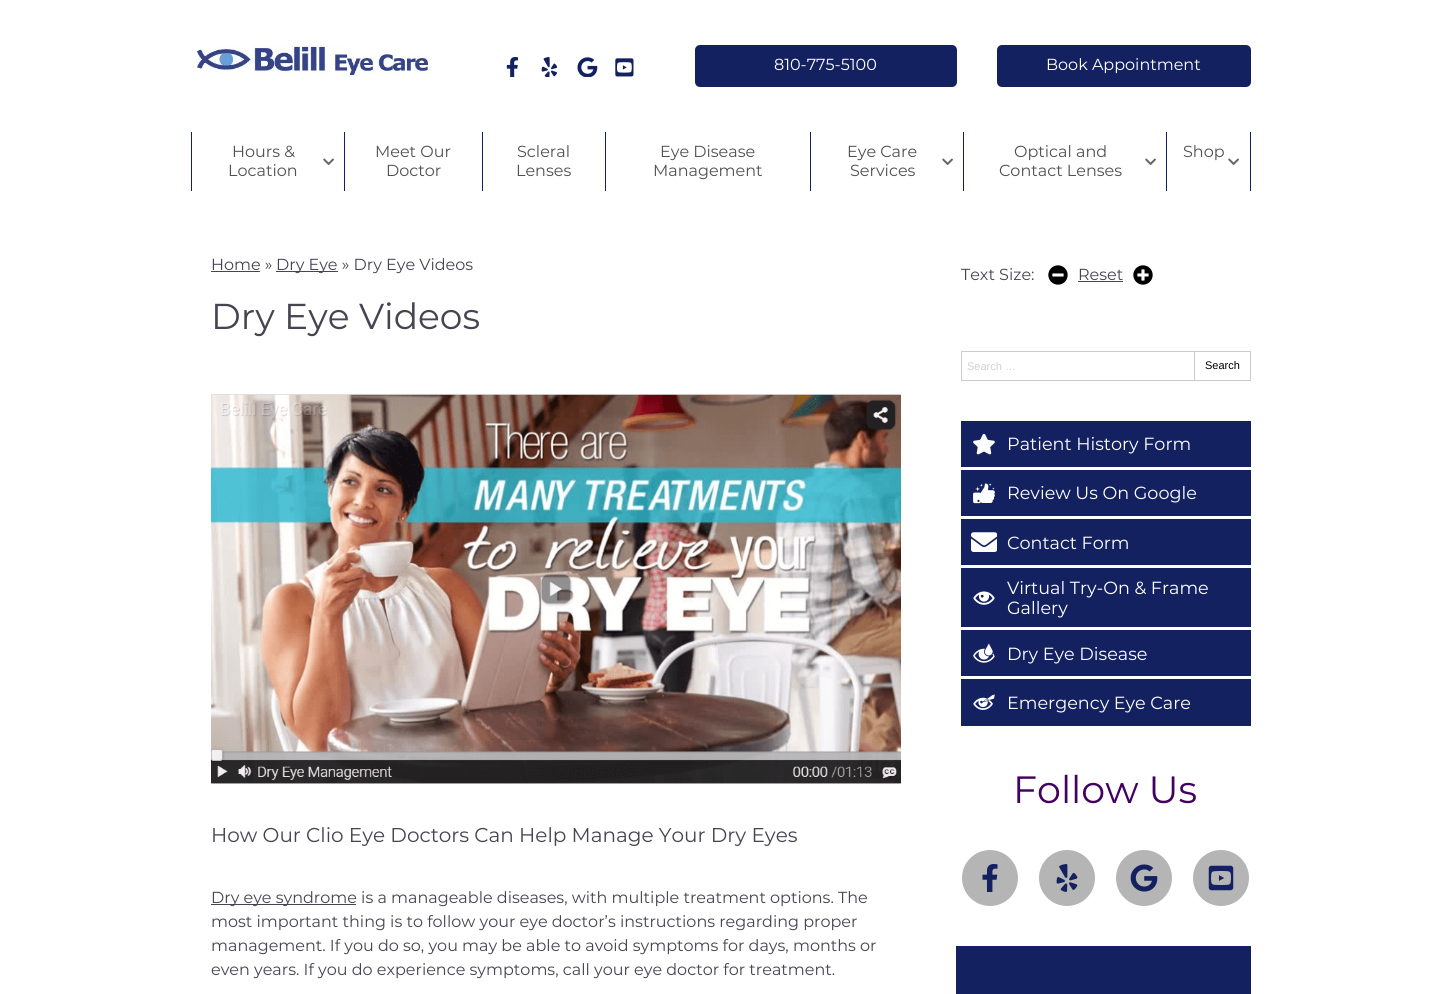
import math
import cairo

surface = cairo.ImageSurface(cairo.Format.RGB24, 1441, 994)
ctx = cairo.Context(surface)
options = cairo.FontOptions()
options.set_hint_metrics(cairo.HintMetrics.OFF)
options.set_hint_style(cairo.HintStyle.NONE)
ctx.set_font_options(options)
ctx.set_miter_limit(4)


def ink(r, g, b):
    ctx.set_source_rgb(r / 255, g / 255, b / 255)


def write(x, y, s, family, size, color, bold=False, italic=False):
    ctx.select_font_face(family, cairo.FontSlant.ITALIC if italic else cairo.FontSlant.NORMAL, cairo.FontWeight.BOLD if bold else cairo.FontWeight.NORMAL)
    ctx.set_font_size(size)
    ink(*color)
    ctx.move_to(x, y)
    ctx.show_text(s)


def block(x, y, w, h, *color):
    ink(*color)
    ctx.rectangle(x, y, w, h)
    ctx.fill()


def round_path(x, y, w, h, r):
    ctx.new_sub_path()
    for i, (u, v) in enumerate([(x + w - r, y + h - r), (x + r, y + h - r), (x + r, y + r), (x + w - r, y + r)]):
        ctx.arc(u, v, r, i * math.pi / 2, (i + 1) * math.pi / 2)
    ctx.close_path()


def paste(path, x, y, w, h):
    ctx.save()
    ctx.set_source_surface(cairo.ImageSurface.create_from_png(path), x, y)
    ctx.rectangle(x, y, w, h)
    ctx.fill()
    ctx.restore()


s1 = dict(family="Montserrat", size=16, color=(255, 255, 255))
s2 = dict(family="Montserrat", size=16, color=(81, 81, 81))
s3 = dict(family="Montserrat", size=16, color=(70, 68, 81))
s4 = dict(family="Montserrat", size=36, color=(70, 68, 81))
s5 = dict(family="Montserrat", size=20, color=(70, 68, 81))
s6 = dict(family="Liberation Sans", size=11, color=(209, 209, 209))
s7 = dict(family="Liberation Sans", size=11, color=(0, 0, 0))
s8 = dict(family="Montserrat", size=17.6, color=(255, 255, 255))
s9 = dict(family="Montserrat", size=38, color=(66, 0, 96))

ink(255, 255, 255)
ctx.paint()
paste("pic1.png", 196, 44, 236, 32)
paste("pic2.png", 506, 57, 12, 20)
paste("pic3.png", 541, 57, 17, 20)
paste("pic4.png", 577, 57, 21, 20)
paste("pic5.png", 615, 58, 19, 19)
ink(20, 33, 96)
round_path(695, 45, 262, 42, 5)
ctx.fill()
write(774, 70, "810-775-5100", **s1)
ink(20, 33, 96)
round_path(997, 45, 254, 42, 5)
ctx.fill()
write(1046, 70, "Book Appointment", **s1)
block(191, 132, 1, 59, 20, 33, 96)
block(344, 132, 1, 59, 20, 33, 96)
write(232, 157, "Hours &", **s2)
write(228, 176, "Location", **s2)
paste("pic6.png", 323, 158, 11, 7)
block(482, 132, 1, 59, 20, 33, 96)
write(375, 157, "Meet Our", **s2)
write(386, 176, "Doctor", **s2)
block(605, 132, 1, 59, 20, 33, 96)
write(517, 157, "Scleral", **s2)
write(516, 176, "Lenses", **s2)
block(810, 132, 1, 59, 20, 33, 96)
write(660, 157, "Eye Disease", **s2)
write(653, 176, "Management", **s2)
block(963, 132, 1, 59, 20, 33, 96)
write(847, 157, "Eye Care", **s2)
write(850, 176, "Services", **s2)
paste("pic6.png", 942, 158, 11, 7)
block(1166, 132, 1, 59, 20, 33, 96)
write(1014, 157, "Optical and", **s2)
write(999, 176, "Contact Lenses", **s2)
paste("pic6.png", 1145, 158, 11, 7)
block(1250, 132, 1, 59, 20, 33, 96)
write(1183, 157, "Shop", **s2)
paste("pic6.png", 1228, 158, 11, 7)
write(211, 270, "Home »", **s3)
block(211, 271, 49, 1, 70, 68, 81)
block(276, 271, 62, 1, 70, 68, 81)
write(276, 270, "Dry Eye » Dry Eye Videos", **s3)
write(211, 329, "Dry Eye Videos", **s4)
paste("pic7.png", 211, 394, 690, 390)
write(211, 842, "How Our Clio Eye Doctors Can Help Manage Your Dry Eyes", **s5)
block(211, 904, 145, 1, 70, 68, 81)
write(211, 903, "Dry eye syndrome is a manageable diseases, with multiple treatment options. The", **s3)
write(211, 927, "most important thing is to follow your eye doctor’s instructions regarding proper", **s3)
write(211, 951, "management. If you do so, you may be able to avoid symptoms for days, months or", **s3)
write(211, 975, "even years. If you do experience symptoms, call your eye doctor for treatment.", **s3)
write(961, 280, "Text Size:", **s3)
paste("pic8.png", 1048, 265, 20, 20)
write(1078, 280, "Reset", **s3)
block(1078, 281, 45, 1, 70, 68, 81)
paste("pic9.png", 1133, 265, 20, 20)
ctx.rectangle(961.5, 351.5, 233, 29)
ink(204, 204, 204)
ctx.set_line_width(1)
ctx.stroke()
write(967, 370, "Search …", **s6)
ctx.rectangle(1194.5, 351.5, 56, 29)
ink(204, 204, 204)
ctx.stroke()
write(1205, 369, "Search", **s7)
block(961, 421, 290, 46, 20, 33, 96)
paste("pic10.png", 973, 433, 22, 22)
write(1007, 450, "Patient History Form", **s8)
block(961, 470, 290, 46, 20, 33, 96)
paste("pic11.png", 973, 483, 22, 21)
write(1007, 499, "Review Us On Google", **s8)
block(961, 519, 290, 46, 20, 33, 96)
paste("pic12.png", 971, 532, 26, 20)
write(1007, 549, "Contact Form", **s8)
block(961, 568, 290, 59, 20, 33, 96)
paste("pic13.png", 973, 591, 22, 14)
write(1007, 594, "Virtual Try-On & Frame", **s8)
write(1007, 614, "Gallery", **s8)
block(961, 630, 290, 46, 20, 33, 96)
paste("pic14.png", 973, 643, 22, 20)
write(1007, 660, "Dry Eye Disease", **s8)
block(961, 679, 290, 47, 20, 33, 96)
paste("pic15.png", 973, 694, 22, 16)
write(1007, 709, "Emergency Eye Care", **s8)
write(1013, 803, "Follow Us", **s9)
ink(181, 181, 181)
ctx.new_path()
ctx.arc(990, 878, 28, 0, 2 * math.pi)
ctx.fill()
paste("pic16.png", 982, 864, 16, 28)
ctx.arc(1067, 878, 28, 0, 2 * math.pi)
ctx.fill()
paste("pic17.png", 1056, 864, 22, 28)
ctx.arc(1144, 878, 28, 0, 2 * math.pi)
ctx.fill()
paste("pic18.png", 1130, 864, 28, 28)
ctx.arc(1221, 878, 28, 0, 2 * math.pi)
ctx.fill()
paste("pic19.png", 1208, 865, 26, 26)
block(956, 946, 295, 48, 20, 33, 96)
surface.write_to_png("screenshot.png")
